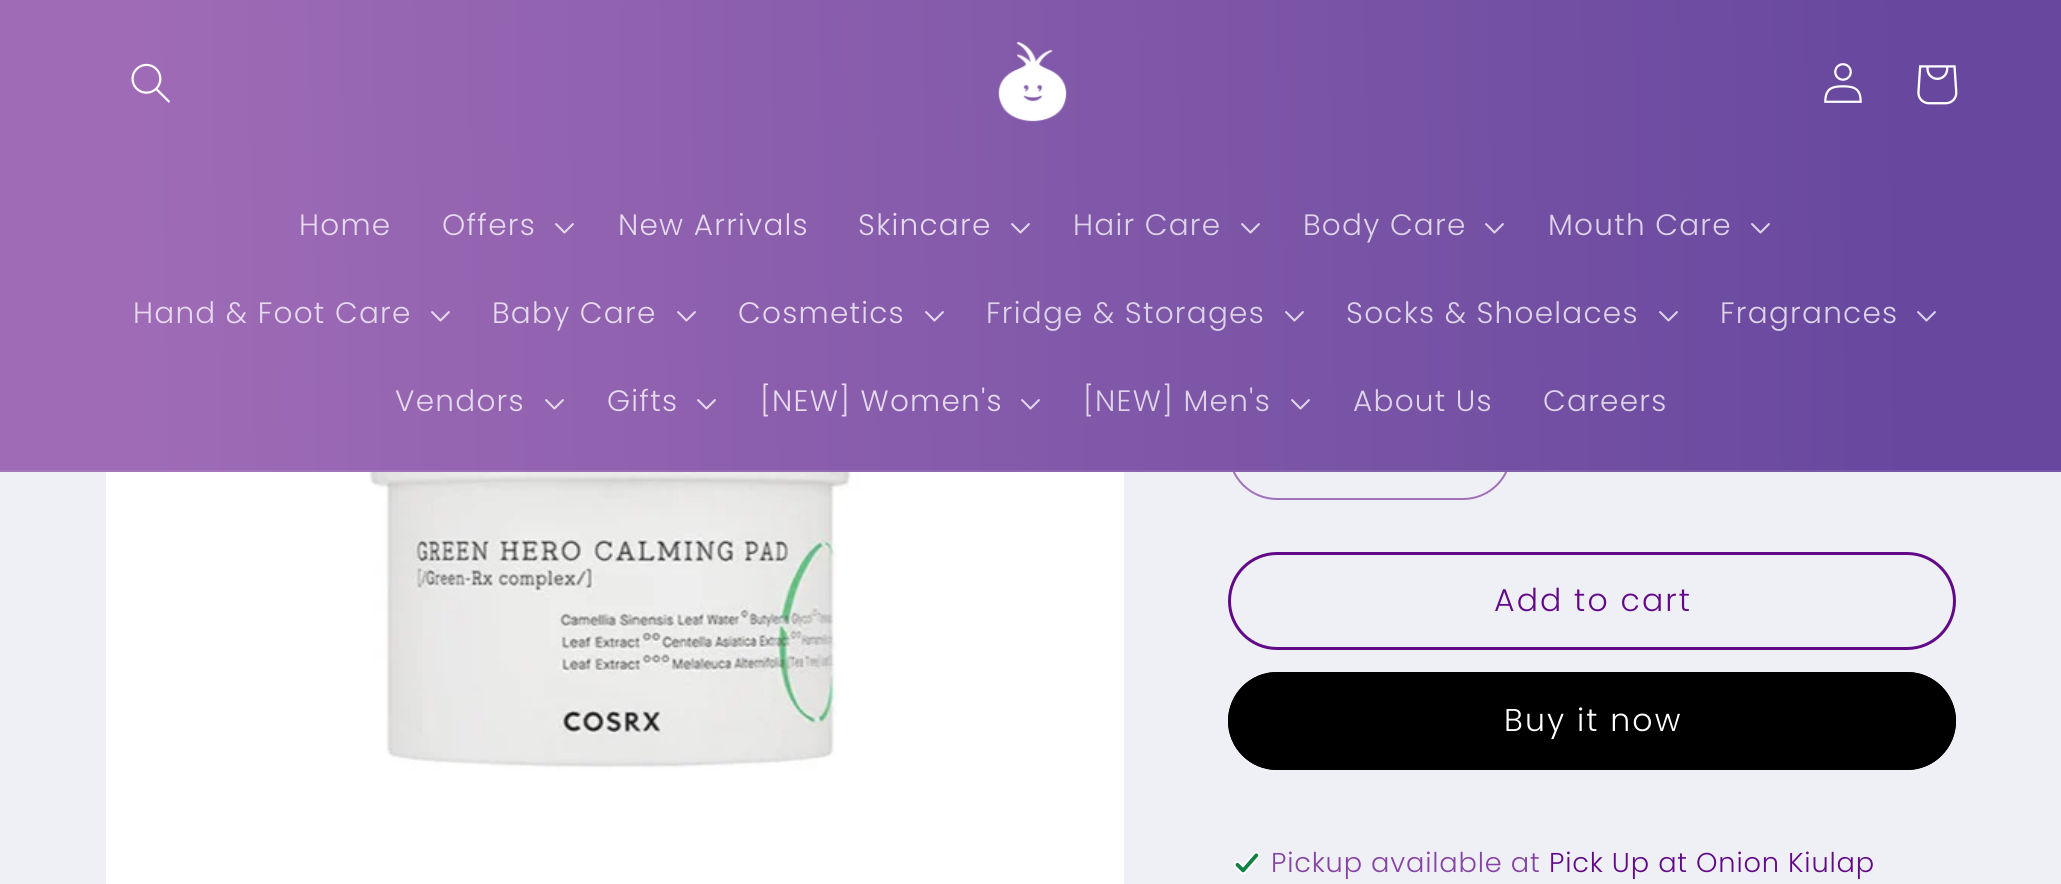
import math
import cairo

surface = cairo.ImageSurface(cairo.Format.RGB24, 2061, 884)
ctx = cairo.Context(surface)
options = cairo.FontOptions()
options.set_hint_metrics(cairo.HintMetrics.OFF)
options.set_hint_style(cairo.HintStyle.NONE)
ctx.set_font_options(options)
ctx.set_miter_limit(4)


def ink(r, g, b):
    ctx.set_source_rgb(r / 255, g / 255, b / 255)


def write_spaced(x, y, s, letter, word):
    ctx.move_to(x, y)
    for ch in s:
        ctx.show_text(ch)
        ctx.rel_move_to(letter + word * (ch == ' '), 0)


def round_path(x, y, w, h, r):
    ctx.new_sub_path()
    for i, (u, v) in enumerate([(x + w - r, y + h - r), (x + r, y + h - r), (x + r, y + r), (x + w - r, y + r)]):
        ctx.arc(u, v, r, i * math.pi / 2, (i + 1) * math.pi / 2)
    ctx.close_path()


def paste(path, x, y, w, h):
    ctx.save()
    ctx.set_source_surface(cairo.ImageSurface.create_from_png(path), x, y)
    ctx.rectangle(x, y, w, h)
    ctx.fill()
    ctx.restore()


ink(239, 240, 245)
ctx.paint()
round_path(1229, 403, 282, 96, 48)
ink(161, 113, 185)
ctx.stroke()
gradient = cairo.LinearGradient(-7.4, 460, 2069, 424)
gradient.add_color_stop_rgba(0.07, 0.624, 0.42, 0.714, 1)
gradient.add_color_stop_rgba(0.93, 0.404, 0.282, 0.62, 1)
ctx.set_source(gradient)
ctx.rectangle(0, 0, 2061, 472)
ctx.fill()
ctx.set_source_rgba(1, 1, 1, 0.08)
ctx.rectangle(0, 470, 2061, 2)
ctx.fill()
paste("pic1.png", 131, 63, 39, 40)
paste("pic2.png", 998, 41, 69, 81)
paste("pic3.png", 1824, 63, 38, 40)
paste("pic4.png", 1917, 65, 41, 40)
ctx.select_font_face("Poppins Light")
ctx.set_font_size(29.5)
ink(229, 217, 236)
write_spaced(299, 235, "Home", 1.25, 0)
write_spaced(442, 235, "Offers", 1.25, 0)
paste("pic5.png", 555, 223, 19, 11)
write_spaced(618, 235, "New Arrivals", 1.25, 0)
write_spaced(858, 235, "Skincare", 1.25, 0)
paste("pic6.png", 1011, 223, 19, 11)
ink(221, 212, 232)
write_spaced(1073, 235, "Hair Care", 1.25, 0)
paste("pic7.png", 1241, 223, 19, 11)
write_spaced(1303, 235, "Body Care", 1.25, 0)
paste("pic8.png", 1485, 223, 19, 11)
write_spaced(1548, 235, "Mouth Care", 1.25, 0)
paste("pic9.png", 1751, 223, 19, 11)
ink(229, 217, 236)
write_spaced(133, 323, "Hand & Foot Care", 1.25, 0)
paste("pic10.png", 431, 311, 19, 11)
write_spaced(492, 323, "Baby Care", 1.25, 0)
paste("pic11.png", 677, 311, 19, 11)
write_spaced(738, 323, "Cosmetics", 1.25, 0)
paste("pic12.png", 925, 311, 19, 11)
ink(221, 212, 232)
write_spaced(986, 323, "Fridge & Storages", 1.25, 0)
paste("pic13.png", 1285, 311, 19, 11)
write_spaced(1346, 323, "Socks & Shoelaces", 1.25, 0)
paste("pic14.png", 1659, 311, 19, 11)
write_spaced(1720, 323, "Fragrances", 1.25, 0)
paste("pic15.png", 1917, 311, 19, 11)
ink(229, 217, 236)
write_spaced(395, 411, "Vendors", 1.25, 0)
paste("pic16.png", 545, 399, 19, 11)
write_spaced(607, 411, "Gifts", 1.25, 0)
paste("pic17.png", 697, 399, 19, 11)
write_spaced(760, 411, "[NEW] Women's", 1.25, 0)
paste("pic18.png", 1021, 399, 19, 11)
ink(221, 212, 232)
write_spaced(1083, 411, "[NEW] Men's", 1.25, 0)
paste("pic19.png", 1291, 399, 19, 11)
write_spaced(1353, 411, "About Us", 1.25, 0)
write_spaced(1543, 411, "Careers", 1.25, 0)
paste("pic20.png", 106, 472, 1018, 412)
round_path(1229.5, 553.5, 725, 95, 47.5)
ink(98, 9, 135)
ctx.set_line_width(3)
ctx.stroke()
ctx.set_font_size(31.5)
write_spaced(1494, 611, "Add to cart", 2.1, 0)
ink(0, 0, 0)
round_path(1228, 672, 728, 98, 49)
ctx.fill()
round_path(1229, 673, 726, 96, 48)
ctx.set_line_width(2)
ctx.stroke()
ink(255, 255, 255)
write_spaced(1504, 731, "Buy it now", 2.1, 0)
paste("pic21.png", 1233, 851, 27, 23)
ctx.set_font_size(27.25)
ink(133, 67, 163)
write_spaced(1271, 872, "Pickup available at", 0.8, 0)
ink(98, 9, 135)
write_spaced(1549, 872, "Pick Up at Onion Kiulap", 0.8, 0)
surface.write_to_png("screenshot.png")
